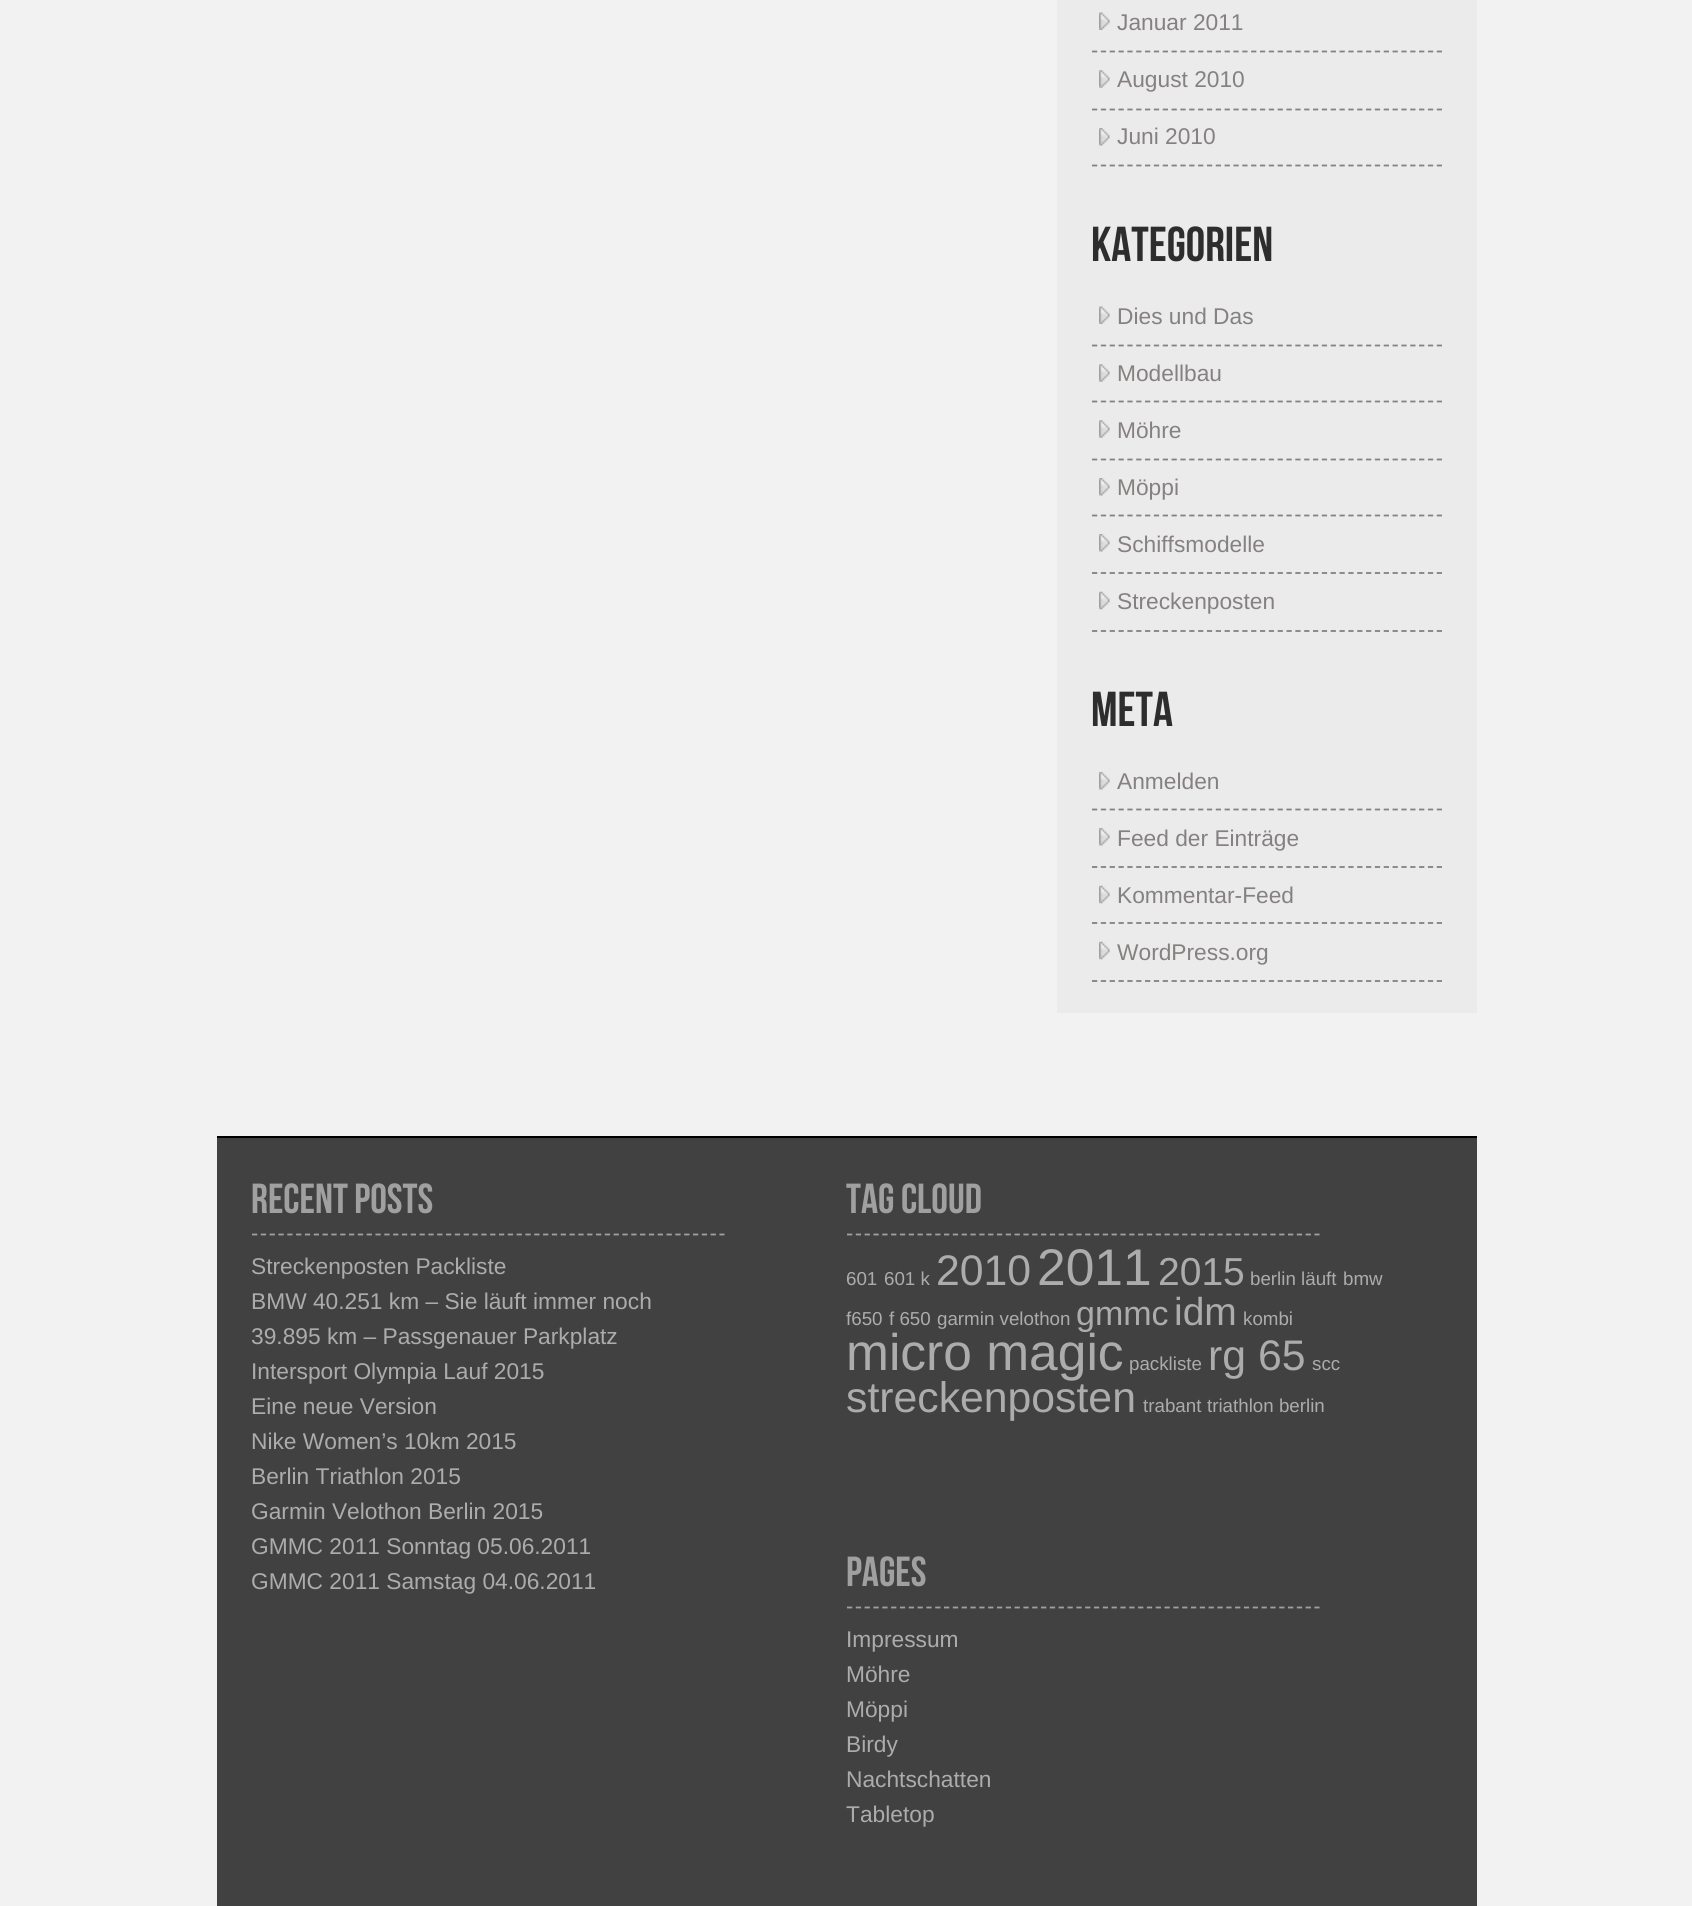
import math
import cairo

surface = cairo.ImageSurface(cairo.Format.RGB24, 1692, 1906)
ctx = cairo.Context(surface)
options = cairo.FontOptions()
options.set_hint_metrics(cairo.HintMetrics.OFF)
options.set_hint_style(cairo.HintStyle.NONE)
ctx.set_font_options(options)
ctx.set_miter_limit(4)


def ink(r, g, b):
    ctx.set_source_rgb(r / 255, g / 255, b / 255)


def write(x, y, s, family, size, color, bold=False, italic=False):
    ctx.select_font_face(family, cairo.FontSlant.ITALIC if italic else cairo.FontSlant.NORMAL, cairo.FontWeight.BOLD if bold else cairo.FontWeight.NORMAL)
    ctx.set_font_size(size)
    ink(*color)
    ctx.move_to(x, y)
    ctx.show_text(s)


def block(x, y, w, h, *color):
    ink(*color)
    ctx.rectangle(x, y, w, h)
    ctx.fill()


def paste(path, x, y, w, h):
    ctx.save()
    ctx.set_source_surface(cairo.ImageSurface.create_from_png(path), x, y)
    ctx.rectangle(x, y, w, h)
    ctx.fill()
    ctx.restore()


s1 = dict(family="Liberation Sans", size=22.75, color=(134, 129, 129))
s2 = dict(family="Bebas Neue", size=49, color=(45, 45, 45))
s3 = dict(family="Bebas Neue", size=42, color=(160, 160, 160))
s4 = dict(family="Liberation Sans", size=22.75, color=(172, 172, 172))
s5 = dict(family="Liberation Sans", size=18.75, color=(172, 172, 172))
s6 = dict(family="Liberation Sans", size=42.75, color=(172, 172, 172))
s7 = dict(family="Liberation Sans", size=51.5, color=(172, 172, 172))
s8 = dict(family="Liberation Sans", size=39, color=(172, 172, 172))
s9 = dict(family="Liberation Sans", size=34, color=(172, 172, 172))

ink(242, 242, 242)
ctx.paint()
block(1057, 0, 420, 1013, 235, 235, 235)
paste("pic1.png", 1099, 12, 11, 18)
ctx.new_path()
ctx.move_to(1092, 51.5)
ctx.line_to(1442, 51.5)
ink(134, 129, 129)
ctx.set_line_width(1.8)
ctx.set_dash([5.25, 3.59])
ctx.stroke()
write(1117, 30, "Januar 2011", **s1)
paste("pic2.png", 1099, 70, 11, 18)
ctx.new_path()
ctx.move_to(1092, 109.5)
ctx.line_to(1442, 109.5)
ctx.stroke()
write(1117, 87, "August 2010", **s1)
paste("pic3.png", 1099, 128, 11, 18)
ctx.new_path()
ctx.move_to(1092, 165.5)
ctx.line_to(1442, 165.5)
ctx.stroke()
write(1117, 144, "Juni 2010", **s1)
write(1091, 261, "KATEGORIEN", **s2)
paste("pic1.png", 1099, 306, 11, 18)
ctx.new_path()
ctx.move_to(1092, 345.5)
ctx.line_to(1442, 345.5)
ink(134, 129, 129)
ctx.stroke()
write(1117, 324, "Dies und Das", **s1)
paste("pic2.png", 1099, 364, 11, 18)
ctx.new_path()
ctx.move_to(1092, 401.5)
ctx.line_to(1442, 401.5)
ctx.stroke()
write(1117, 381, "Modellbau", **s1)
paste("pic2.png", 1099, 420, 11, 18)
ctx.new_path()
ctx.move_to(1092, 459.5)
ctx.line_to(1442, 459.5)
ctx.stroke()
write(1117, 438, "Möhre", **s1)
paste("pic3.png", 1099, 478, 11, 18)
ctx.new_path()
ctx.move_to(1092, 515.5)
ctx.line_to(1442, 515.5)
ctx.stroke()
write(1117, 495, "Möppi", **s1)
paste("pic3.png", 1099, 534, 11, 18)
ctx.new_path()
ctx.move_to(1092, 573)
ctx.line_to(1442, 573)
ctx.stroke()
write(1117, 552, "Schiffsmodelle", **s1)
paste("pic4.png", 1099, 591, 11, 19)
ctx.new_path()
ctx.move_to(1092, 631)
ctx.line_to(1442, 631)
ctx.stroke()
write(1117, 609, "Streckenposten", **s1)
write(1091, 726, "META", **s2)
paste("pic3.png", 1099, 772, 11, 18)
ctx.new_path()
ctx.move_to(1092, 809.5)
ctx.line_to(1442, 809.5)
ink(134, 129, 129)
ctx.stroke()
write(1117, 789, "Anmelden", **s1)
paste("pic3.png", 1099, 828, 11, 18)
ctx.new_path()
ctx.move_to(1092, 867)
ctx.line_to(1442, 867)
ctx.stroke()
write(1117, 846, "Feed der Einträge", **s1)
paste("pic4.png", 1099, 885, 11, 19)
ctx.new_path()
ctx.move_to(1092, 923)
ctx.line_to(1442, 923)
ctx.stroke()
write(1117, 903, "Kommentar-Feed", **s1)
paste("pic4.png", 1099, 941, 11, 19)
ctx.new_path()
ctx.move_to(1092, 981)
ctx.line_to(1442, 981)
ctx.stroke()
write(1117, 960, "WordPress.org", **s1)
block(217, 1138, 1260, 768, 65, 65, 65)
block(217, 1136, 1260, 2, 0, 0, 0)
ctx.new_path()
ctx.move_to(252, 1234.5)
ctx.line_to(724.5, 1234.5)
ink(160, 160, 160)
ctx.set_dash([5.25, 3.57])
ctx.stroke()
write(251, 1213, "RECENT POSTS", **s3)
write(251, 1274, "Streckenposten Packliste", **s4)
write(251, 1309, "BMW 40.251 km – Sie läuft immer noch", **s4)
write(251, 1344, "39.895 km – Passgenauer Parkplatz", **s4)
write(251, 1379, "Intersport Olympia Lauf 2015", **s4)
write(251, 1414, "Eine neue Version", **s4)
write(251, 1449, "Nike Women’s 10km 2015", **s4)
write(251, 1484, "Berlin Triathlon 2015", **s4)
write(251, 1519, "Garmin Velothon Berlin 2015", **s4)
write(251, 1554, "GMMC 2011 Sonntag 05.06.2011", **s4)
write(251, 1589, "GMMC 2011 Samstag 04.06.2011", **s4)
ctx.new_path()
ctx.move_to(847, 1234.5)
ctx.line_to(1319.5, 1234.5)
ink(160, 160, 160)
ctx.stroke()
write(846, 1213, "TAG CLOUD", **s3)
write(846, 1285, "601", **s5)
write(884, 1285, "601 k", **s5)
write(936, 1285, "2010", **s6)
write(1037, 1285, "2011", **s7)
write(1158, 1285, "2015", **s8)
write(1250, 1285, "berlin läuft", **s5)
write(1343, 1285, "bmw", **s5)
write(846, 1325, "f650", **s5)
write(889, 1325, "f 650", **s5)
write(937, 1325, "garmin velothon", **s5)
write(1076, 1325, "gmmc", **s9)
write(1174, 1325, "idm", **s8)
write(1243, 1325, "kombi", **s5)
write(846, 1370, "micro magic", **s7)
write(1129, 1370, "packliste", **s5)
write(1208, 1370, "rg 65", **s6)
write(1312, 1370, "scc", **s5)
write(846, 1412, "streckenposten", **s6)
write(1143, 1412, "trabant", **s5)
write(1207, 1412, "triathlon berlin", **s5)
ctx.new_path()
ctx.move_to(847, 1607.5)
ctx.line_to(1319.5, 1607.5)
ink(160, 160, 160)
ctx.stroke()
write(846, 1586, "PAGES", **s3)
write(846, 1647, "Impressum", **s4)
write(846, 1682, "Möhre", **s4)
write(846, 1717, "Möppi", **s4)
write(846, 1752, "Birdy", **s4)
write(846, 1787, "Nachtschatten", **s4)
write(846, 1822, "Tabletop", **s4)
surface.write_to_png("screenshot.png")
